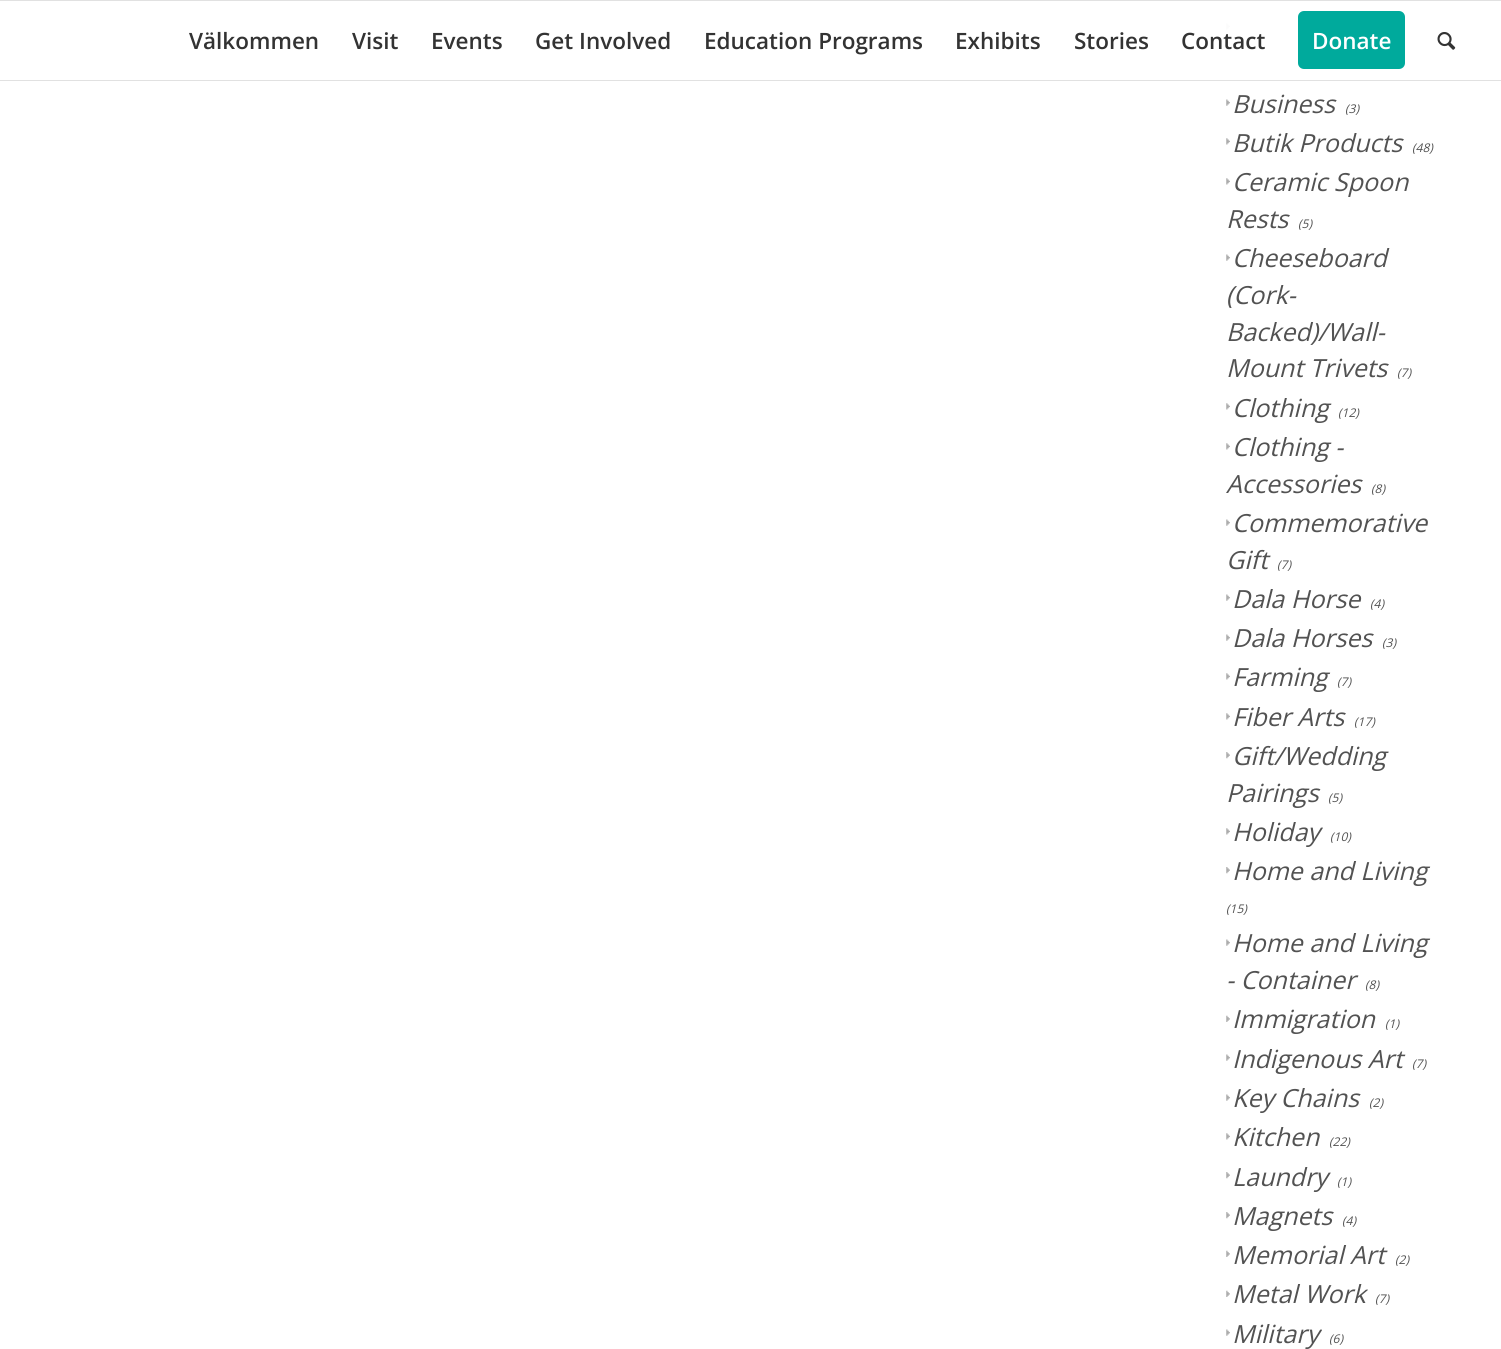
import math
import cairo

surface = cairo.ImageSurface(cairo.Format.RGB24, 1501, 1349)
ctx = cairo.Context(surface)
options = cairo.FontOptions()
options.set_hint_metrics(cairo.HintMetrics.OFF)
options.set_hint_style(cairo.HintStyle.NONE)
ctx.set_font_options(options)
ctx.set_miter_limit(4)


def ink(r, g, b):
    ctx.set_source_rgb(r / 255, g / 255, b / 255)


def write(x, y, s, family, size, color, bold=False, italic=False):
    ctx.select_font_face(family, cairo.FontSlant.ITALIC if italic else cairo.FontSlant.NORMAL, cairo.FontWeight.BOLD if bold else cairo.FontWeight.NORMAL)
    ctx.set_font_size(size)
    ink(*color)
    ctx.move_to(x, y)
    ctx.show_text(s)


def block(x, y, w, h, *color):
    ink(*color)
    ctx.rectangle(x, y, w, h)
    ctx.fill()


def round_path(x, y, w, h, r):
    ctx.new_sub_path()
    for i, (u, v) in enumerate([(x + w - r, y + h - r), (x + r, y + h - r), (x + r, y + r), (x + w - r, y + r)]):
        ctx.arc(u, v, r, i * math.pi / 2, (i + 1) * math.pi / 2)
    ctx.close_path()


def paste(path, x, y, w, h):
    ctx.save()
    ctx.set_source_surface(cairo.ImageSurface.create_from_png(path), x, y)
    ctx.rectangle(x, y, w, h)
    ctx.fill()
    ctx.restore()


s1 = dict(family="Open Sans SemiBold", size=22.5, color=(51, 51, 51))
s2 = dict(family="Open Sans SemiBold", size=22.5, color=(255, 255, 255))
s3 = dict(family="Open Sans", size=25, color=(82, 82, 82), italic=True)
s4 = dict(family="Open Sans", size=12, color=(82, 82, 82), italic=True)

ink(255, 255, 255)
ctx.paint()
block(0, 0, 1501, 1, 225, 225, 225)
block(0, 80, 1501, 1, 225, 225, 225)
write(189, 49, "Välkommen", **s1)
write(352, 49, "Visit", **s1)
write(431, 49, "Events", **s1)
write(535, 49, "Get Involved", **s1)
write(704, 49, "Education Programs", **s1)
write(955, 49, "Exhibits", **s1)
write(1074, 49, "Stories", **s1)
write(1181, 49, "Contact", **s1)
ink(0, 170, 156)
round_path(1299.5, 12.5, 104, 55, 4.5)
ctx.fill_preserve()
ctx.set_line_width(3)
ctx.stroke()
write(1312, 49, "Donate", **s2)
paste("pic1.png", 1437, 32, 19, 18)
paste("pic2.png", 1226, 23, 4, 7)
paste("pic3.png", 1226, 99, 4, 7)
write(1232, 113, "Business", **s3)
write(1345, 113, "(3)", **s4)
paste("pic4.png", 1226, 138, 4, 7)
write(1232, 152, "Butik Products", **s3)
write(1412, 152, "(48)", **s4)
paste("pic4.png", 1226, 178, 4, 7)
write(1232, 191, "Ceramic Spoon", **s3)
write(1226, 228, "Rests", **s3)
write(1298, 228, "(5)", **s4)
paste("pic3.png", 1226, 254, 4, 7)
write(1232, 267, "Cheeseboard", **s3)
write(1226, 304, "(Cork-", **s3)
write(1226, 341, "Backed)/Wall-", **s3)
write(1226, 377, "Mount Trivets", **s3)
write(1397, 377, "(7)", **s4)
paste("pic4.png", 1226, 403, 4, 7)
write(1232, 417, "Clothing", **s3)
write(1338, 417, "(12)", **s4)
paste("pic4.png", 1226, 443, 4, 7)
write(1232, 456, "Clothing -", **s3)
write(1226, 493, "Accessories", **s3)
write(1371, 493, "(8)", **s4)
paste("pic3.png", 1226, 519, 4, 7)
write(1232, 532, "Commemorative", **s3)
write(1226, 569, "Gift", **s3)
write(1277, 569, "(7)", **s4)
paste("pic3.png", 1226, 594, 4, 7)
write(1232, 608, "Dala Horse", **s3)
write(1370, 608, "(4)", **s4)
paste("pic3.png", 1226, 634, 4, 7)
write(1232, 647, "Dala Horses", **s3)
write(1382, 647, "(3)", **s4)
paste("pic4.png", 1226, 673, 4, 7)
write(1232, 686, "Farming", **s3)
write(1337, 686, "(7)", **s4)
paste("pic4.png", 1226, 713, 4, 7)
write(1232, 726, "Fiber Arts", **s3)
write(1354, 726, "(17)", **s4)
paste("pic5.png", 1226, 752, 4, 7)
write(1232, 765, "Gift/Wedding", **s3)
write(1226, 802, "Pairings", **s3)
write(1328, 802, "(5)", **s4)
paste("pic4.png", 1226, 828, 4, 7)
write(1232, 841, "Holiday", **s3)
write(1330, 841, "(10)", **s4)
paste("pic5.png", 1226, 867, 4, 7)
write(1232, 880, "Home and Living", **s3)
write(1226, 913, "(15)", **s4)
paste("pic3.png", 1226, 939, 4, 7)
write(1232, 952, "Home and Living", **s3)
write(1226, 989, "- Container", **s3)
write(1365, 989, "(8)", **s4)
paste("pic6.png", 1226, 1015, 4, 7)
write(1232, 1028, "Immigration", **s3)
write(1385, 1028, "(1)", **s4)
paste("pic3.png", 1226, 1054, 4, 7)
write(1232, 1068, "Indigenous Art", **s3)
write(1412, 1068, "(7)", **s4)
paste("pic3.png", 1226, 1094, 4, 7)
write(1232, 1107, "Key Chains", **s3)
write(1369, 1107, "(2)", **s4)
paste("pic4.png", 1226, 1133, 4, 7)
write(1232, 1146, "Kitchen", **s3)
write(1329, 1146, "(22)", **s4)
paste("pic5.png", 1226, 1172, 4, 7)
write(1232, 1186, "Laundry", **s3)
write(1337, 1186, "(1)", **s4)
paste("pic5.png", 1226, 1212, 4, 7)
write(1232, 1225, "Magnets", **s3)
write(1342, 1225, "(4)", **s4)
paste("pic7.png", 1226, 1250, 4, 7)
write(1232, 1264, "Memorial Art", **s3)
write(1395, 1264, "(2)", **s4)
paste("pic7.png", 1226, 1290, 4, 7)
write(1232, 1303, "Metal Work", **s3)
write(1375, 1303, "(7)", **s4)
paste("pic3.png", 1226, 1329, 4, 7)
write(1232, 1343, "Military", **s3)
write(1329, 1343, "(6)", **s4)
surface.write_to_png("screenshot.png")
